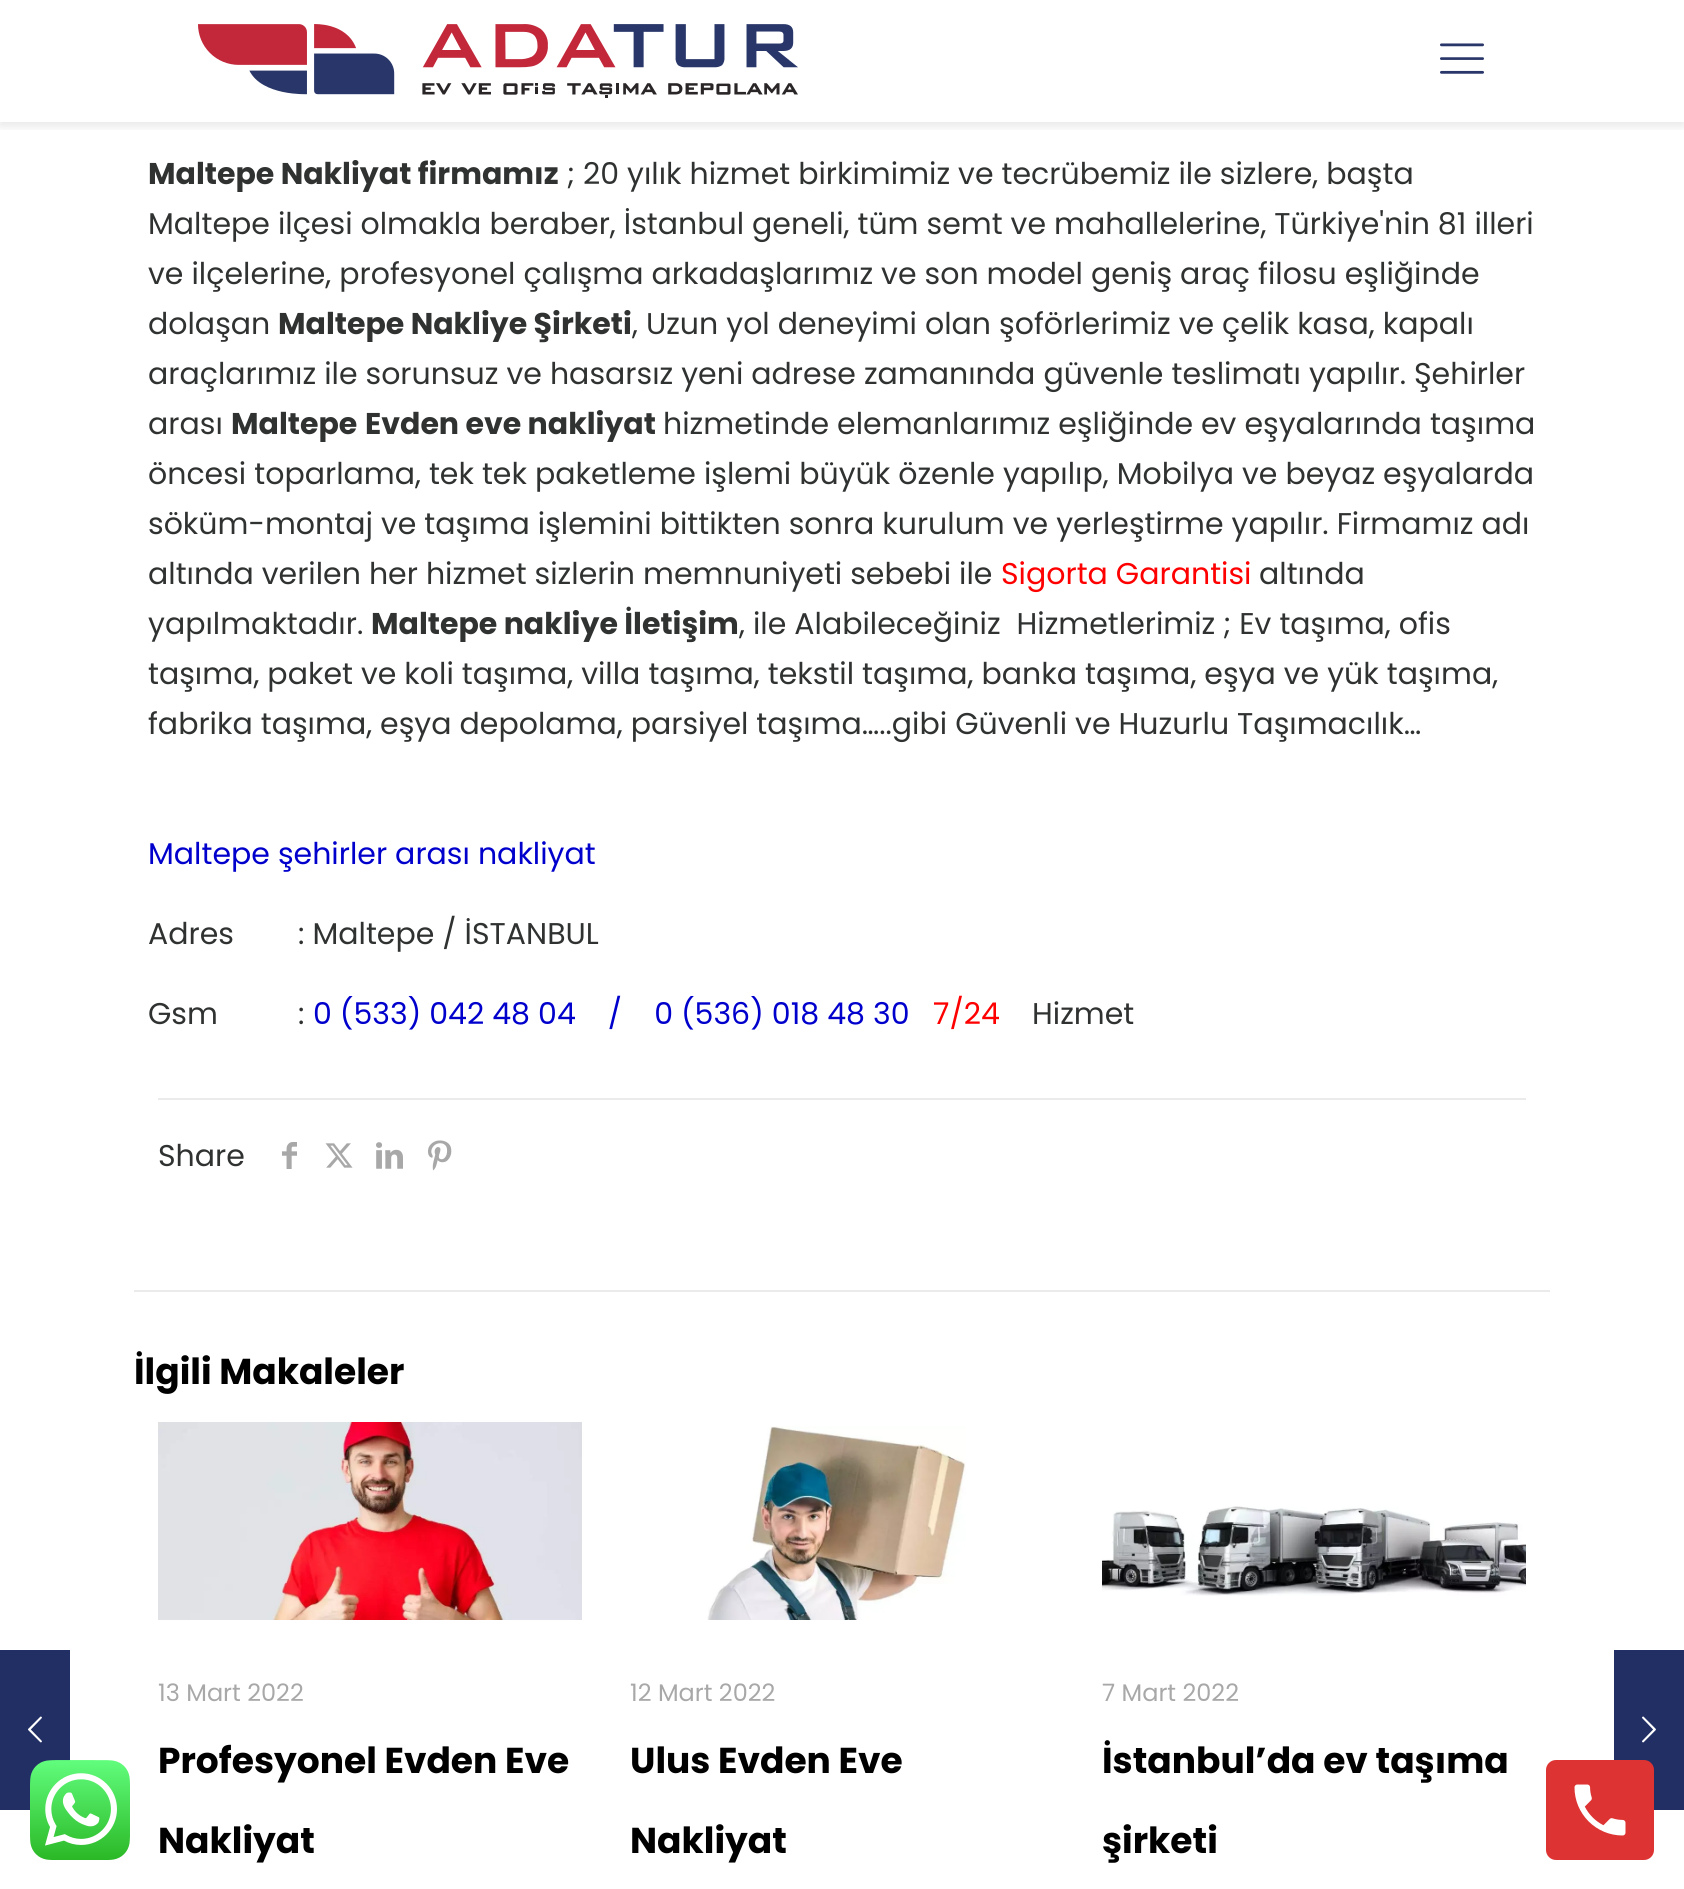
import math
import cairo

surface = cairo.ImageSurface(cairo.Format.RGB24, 1684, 1889)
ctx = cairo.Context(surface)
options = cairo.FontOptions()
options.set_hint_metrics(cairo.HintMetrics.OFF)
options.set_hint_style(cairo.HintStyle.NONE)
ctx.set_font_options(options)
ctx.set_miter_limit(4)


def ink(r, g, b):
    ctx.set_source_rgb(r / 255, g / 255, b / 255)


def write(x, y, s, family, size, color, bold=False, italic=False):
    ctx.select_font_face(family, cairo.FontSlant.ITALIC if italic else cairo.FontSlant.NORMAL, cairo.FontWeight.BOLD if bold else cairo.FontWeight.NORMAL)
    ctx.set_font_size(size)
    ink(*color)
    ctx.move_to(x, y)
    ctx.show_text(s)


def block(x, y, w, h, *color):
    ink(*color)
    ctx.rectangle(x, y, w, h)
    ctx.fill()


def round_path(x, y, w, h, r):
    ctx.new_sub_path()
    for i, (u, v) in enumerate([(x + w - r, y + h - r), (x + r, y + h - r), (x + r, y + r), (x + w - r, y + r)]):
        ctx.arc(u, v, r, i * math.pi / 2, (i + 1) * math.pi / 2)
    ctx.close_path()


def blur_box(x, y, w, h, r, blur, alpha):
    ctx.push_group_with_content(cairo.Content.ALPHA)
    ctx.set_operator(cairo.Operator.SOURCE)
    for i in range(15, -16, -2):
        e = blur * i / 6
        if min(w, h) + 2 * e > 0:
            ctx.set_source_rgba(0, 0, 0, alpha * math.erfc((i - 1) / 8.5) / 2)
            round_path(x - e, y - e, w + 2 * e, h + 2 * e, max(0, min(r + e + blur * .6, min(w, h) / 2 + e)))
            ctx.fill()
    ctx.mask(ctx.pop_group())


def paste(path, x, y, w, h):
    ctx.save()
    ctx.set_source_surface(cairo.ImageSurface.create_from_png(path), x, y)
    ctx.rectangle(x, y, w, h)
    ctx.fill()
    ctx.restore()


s1 = dict(family="Poppins", size=30, color=(47, 50, 49), bold=True)
s2 = dict(family="Poppins", size=30, color=(47, 50, 49))
s3 = dict(family="Poppins", size=30, color=(255, 0, 0))
s4 = dict(family="Poppins", size=30, color=(0, 0, 205))
s5 = dict(family="Poppins", size=36, color=(0, 0, 0), bold=True)
s6 = dict(family="Poppins", size=24, color=(168, 168, 168))

ink(255, 255, 255)
ctx.paint()
block(0, 1650, 70, 160, 33, 47, 100)
paste("pic1.png", 28, 1716, 14, 27)
ctx.save()
ctx.rectangle(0, 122, 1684, 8)
ctx.clip()
ink(8, 8, 8)
blur_box(0, 4, 1684, 122, 0, 5, 0.1)
ctx.restore()
paste("pic2.png", 198, 24, 600, 74)
paste("pic3.png", 1440, 43, 44, 31)
write(148, 184, "Maltepe Nakliyat firmamız", **s1)
write(567, 184, "; 20 yılık hizmet birkimimiz ve tecrübemiz ile sizlere, başta", **s2)
write(148, 234, "Maltepe ilçesi olmakla beraber, İstanbul geneli, tüm semt ve mahallelerine, Türkiye'nin 81 illeri", **s2)
write(148, 284, "ve ilçelerine, profesyonel çalışma arkadaşlarımız ve son model geniş araç filosu eşliğinde", **s2)
write(148, 334, "dolaşan", **s2)
write(278, 334, "Maltepe Nakliye Şirketi", **s1)
write(632, 334, ", Uzun yol deneyimi olan şoförlerimiz ve çelik kasa, kapalı", **s2)
write(148, 384, "araçlarımız ile sorunsuz ve hasarsız yeni adrese zamanında güvenle teslimatı yapılır. Şehirler", **s2)
write(148, 434, "arası", **s2)
write(231, 434, "Maltepe", **s1)
write(365, 434, "Evden eve nakliyat", **s1)
write(663, 434, "hizmetinde elemanlarımız eşliğinde ev eşyalarında taşıma", **s2)
write(148, 484, "öncesi toparlama, tek tek paketleme işlemi büyük özenle yapılıp, Mobilya ve beyaz eşyalarda", **s2)
write(148, 534, "söküm-montaj ve taşıma işlemini bittikten sonra kurulum ve yerleştirme yapılır. Firmamız adı", **s2)
write(148, 584, "altında verilen her hizmet sizlerin memnuniyeti sebebi ile", **s2)
write(1001, 584, "Sigorta Garantisi", **s3)
write(1259, 584, "altında", **s2)
write(148, 634, "yapılmaktadır.", **s2)
write(371, 634, "Maltepe nakliye İletişim", **s1)
write(739, 634, ", ile Alabileceğiniz  Hizmetlerimiz ; Ev taşıma, ofis", **s2)
write(148, 684, "taşıma, paket ve koli taşıma, villa taşıma, tekstil taşıma, banka taşıma, eşya ve yük taşıma,", **s2)
write(148, 734, "fabrika taşıma, eşya depolama, parsiyel taşıma…..gibi Güvenli ve Huzurlu Taşımacılık…", **s2)
write(148, 864, "Maltepe şehirler arası nakliyat", **s4)
write(148, 944, "Adres        : Maltepe / İSTANBUL", **s2)
write(148, 1024, "Gsm          :", **s2)
write(313, 1024, "0 (533) 042 48 04    /    0 (536) 018 48 30", **s4)
write(933, 1024, "7/24", **s3)
write(1032, 1024, "Hizmet", **s2)
block(158, 1098, 1368, 2, 235, 235, 235)
write(158, 1166, "Share", **s2)
paste("pic4.png", 282, 1142, 15, 27)
paste("pic5.png", 325, 1143, 28, 25)
paste("pic6.png", 376, 1142, 27, 27)
paste("pic7.png", 428, 1140, 24, 31)
block(134, 1290, 1416, 2, 235, 235, 235)
write(134, 1384, "İlgili Makaleler", **s5)
paste("pic8.png", 158, 1422, 424, 198)
write(158, 1701, "13 Mart 2022", **s6)
write(158, 1773, "Profesyonel Evden Eve", **s5)
write(158, 1853, "Nakliyat", **s5)
paste("pic9.png", 707, 1426, 259, 194)
write(630, 1701, "12 Mart 2022", **s6)
write(630, 1773, "Ulus Evden Eve", **s5)
write(630, 1853, "Nakliyat", **s5)
paste("pic10.png", 1102, 1506, 424, 90)
write(1102, 1701, "7 Mart 2022", **s6)
write(1102, 1773, "İstanbul’da ev taşıma", **s5)
write(1102, 1853, "şirketi", **s5)
block(1614, 1650, 70, 160, 33, 47, 100)
paste("pic11.png", 1642, 1716, 14, 27)
paste("pic12.png", 30, 1760, 100, 100)
ink(221, 51, 51)
round_path(1546, 1760, 108, 100, 10)
ctx.fill()
paste("pic13.png", 1574, 1784, 52, 52)
surface.write_to_png("screenshot.png")
